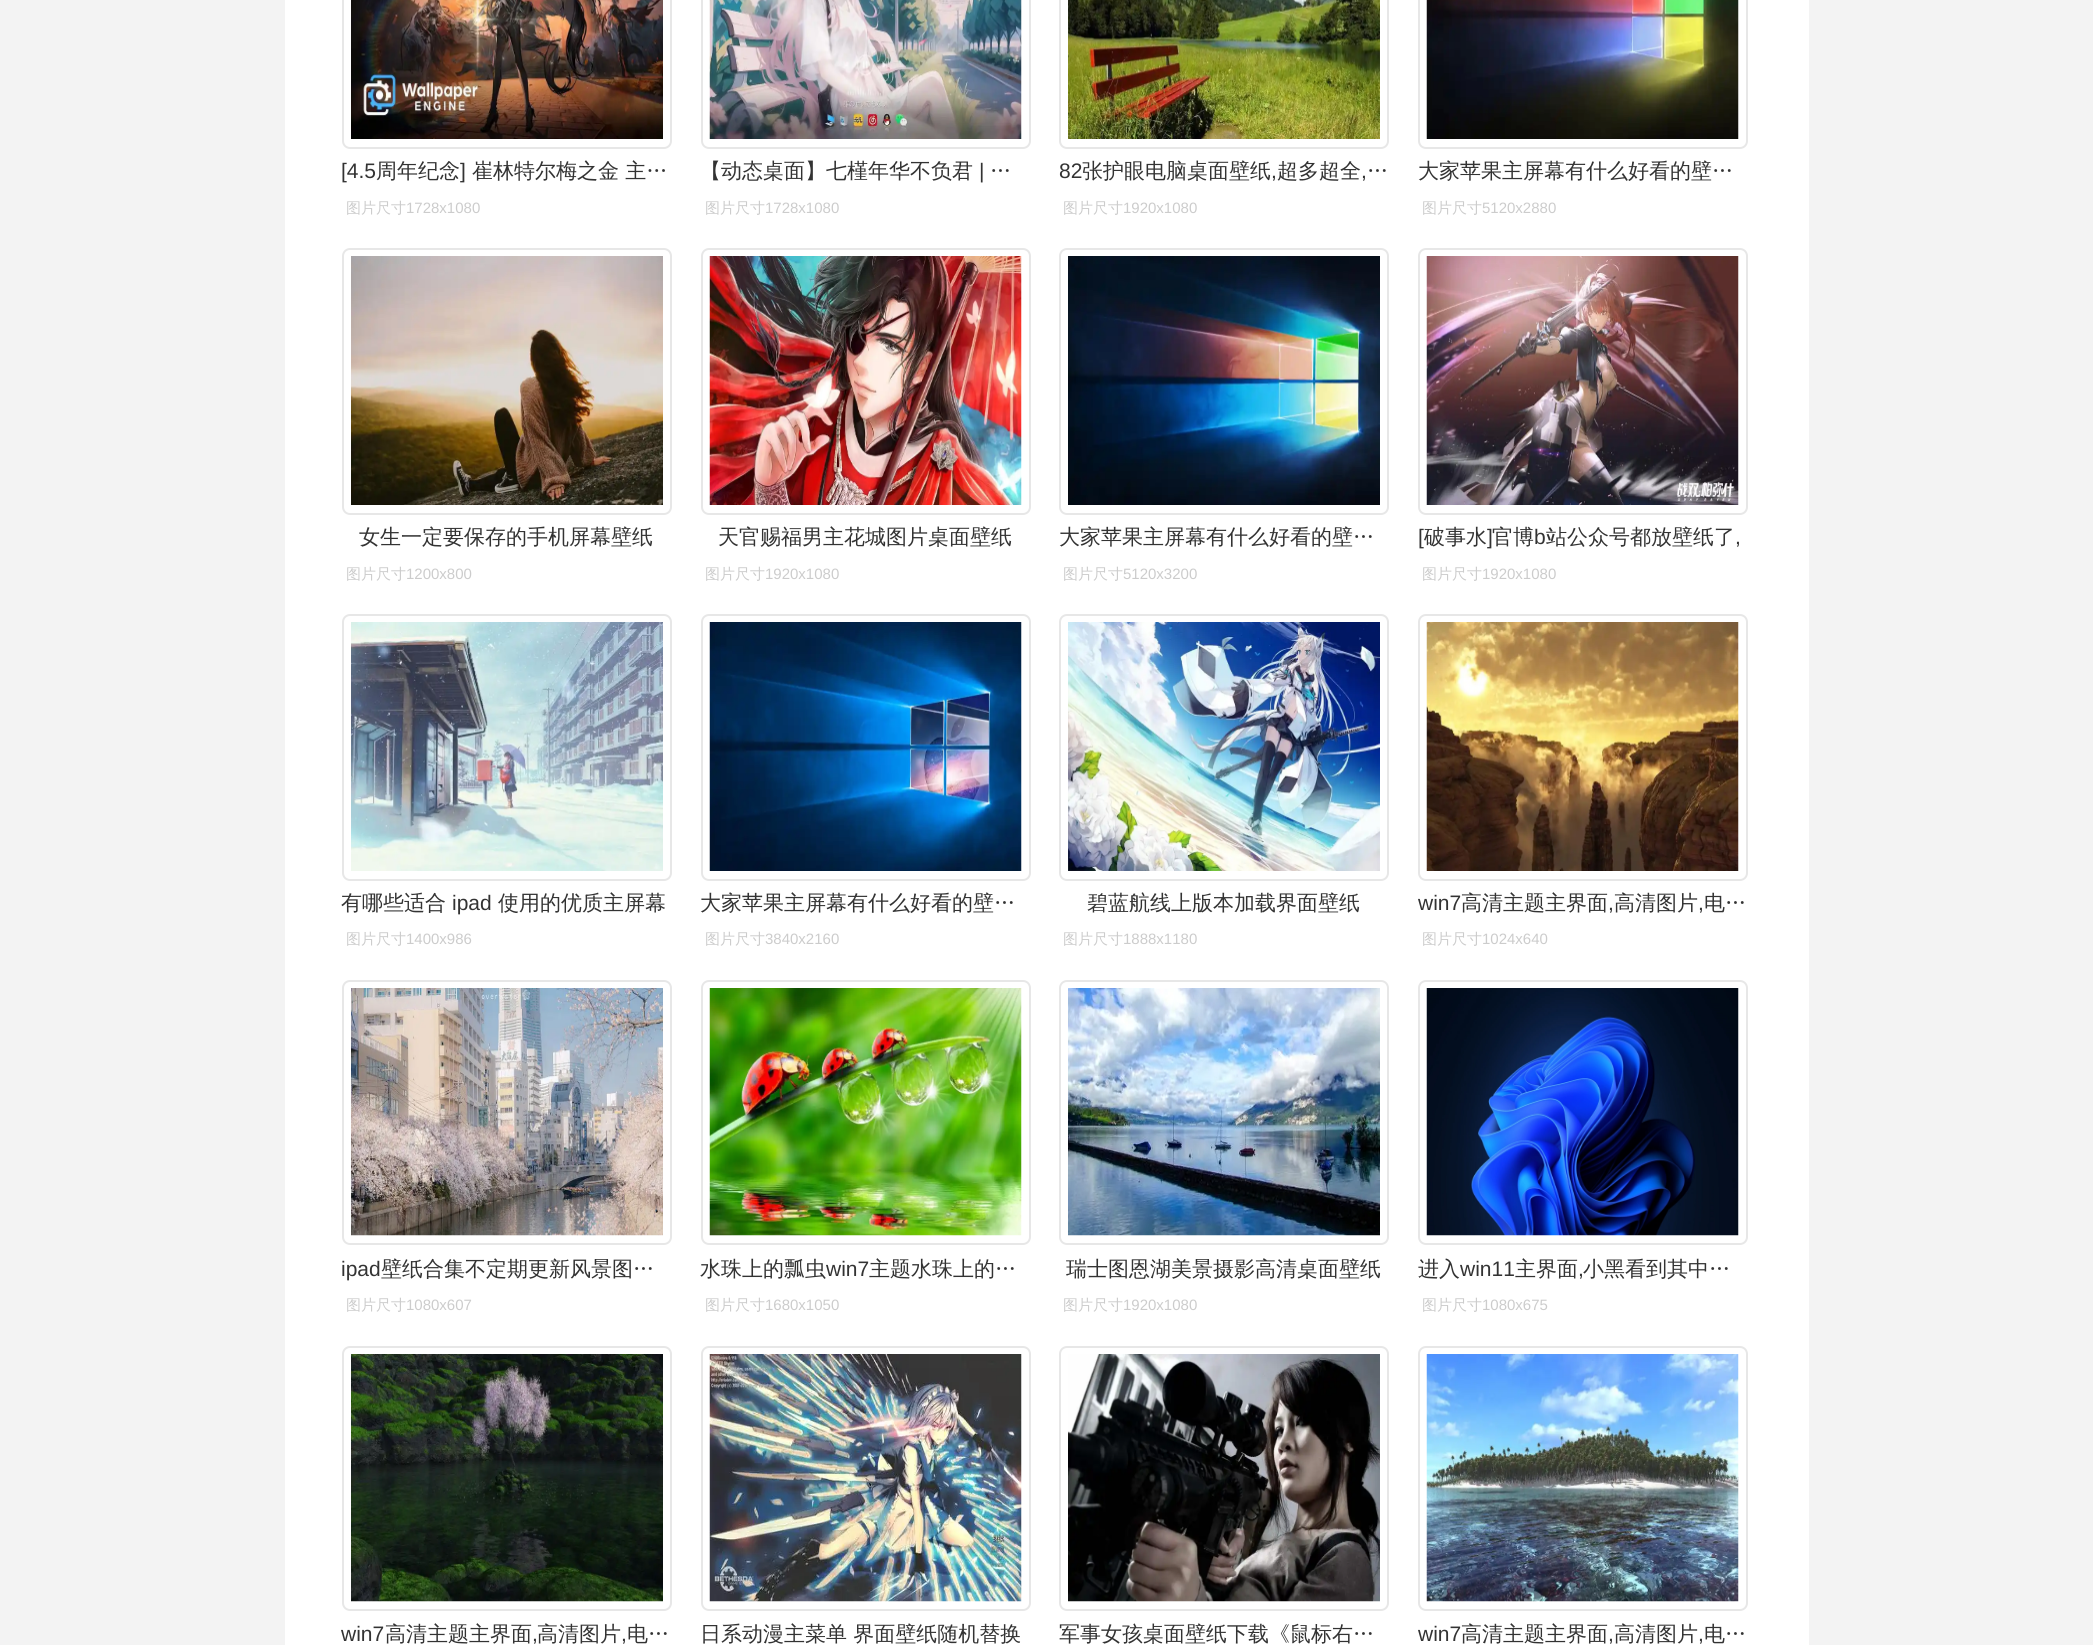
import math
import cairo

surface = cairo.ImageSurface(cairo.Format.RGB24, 2093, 1645)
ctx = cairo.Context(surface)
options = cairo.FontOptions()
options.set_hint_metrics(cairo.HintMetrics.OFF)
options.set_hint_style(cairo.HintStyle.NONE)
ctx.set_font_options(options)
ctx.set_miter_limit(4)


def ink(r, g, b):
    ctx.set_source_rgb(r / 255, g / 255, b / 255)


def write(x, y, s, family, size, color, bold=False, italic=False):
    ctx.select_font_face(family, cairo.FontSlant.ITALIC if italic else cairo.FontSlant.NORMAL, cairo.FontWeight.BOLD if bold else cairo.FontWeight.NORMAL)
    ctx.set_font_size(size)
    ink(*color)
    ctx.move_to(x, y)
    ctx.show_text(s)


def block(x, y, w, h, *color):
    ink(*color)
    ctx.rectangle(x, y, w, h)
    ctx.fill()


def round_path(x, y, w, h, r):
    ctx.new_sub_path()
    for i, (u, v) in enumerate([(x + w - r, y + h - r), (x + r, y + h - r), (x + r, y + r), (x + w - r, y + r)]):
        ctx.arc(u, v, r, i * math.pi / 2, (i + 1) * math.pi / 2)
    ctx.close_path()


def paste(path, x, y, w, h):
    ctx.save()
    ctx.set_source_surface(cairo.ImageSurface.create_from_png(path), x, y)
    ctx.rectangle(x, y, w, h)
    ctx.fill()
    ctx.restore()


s1 = dict(family="Liberation Sans", size=21, color=(51, 51, 51))
s2 = dict(family="WenQuanYi Zen Hei Medium", size=21, color=(51, 51, 51))
s3 = dict(family="WenQuanYi Zen Hei Medium", size=15, color=(204, 204, 204))
s4 = dict(family="Liberation Sans", size=15, color=(204, 204, 204))

ink(243, 243, 243)
ctx.paint()
block(285, 0, 1524, 1645, 255, 255, 255)
round_path(343, -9, 328, 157, 7)
ink(231, 231, 231)
ctx.stroke()
paste("pic1.png", 351, 0, 312, 139)
write(341, 178, "[4.5", **s1)
write(376, 178, "周年纪念", **s2)
write(460, 178, "]", **s1)
write(472, 178, "崔林特尔梅之金 主…", **s2)
write(346, 213, "图片尺寸", **s3)
write(406, 213, "1728x1080", **s4)
round_path(702, -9, 328, 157, 7)
ink(231, 231, 231)
ctx.stroke()
paste("pic2.png", 709, 0, 313, 139)
write(700, 178, "【动态桌面】七槿年华不负君", **s2)
write(979, 178, "|", **s1)
write(990, 178, "…", **s2)
write(705, 213, "图片尺寸", **s3)
write(765, 213, "1728x1080", **s4)
round_path(1060, -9, 328, 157, 7)
ink(231, 231, 231)
ctx.stroke()
paste("pic3.png", 1068, 0, 312, 139)
write(1059, 178, "82", **s1)
write(1082, 178, "张护眼电脑桌面壁纸", **s2)
write(1277, 178, "超多超全", **s2)
write(1367, 178, "…", **s2)
write(1271, 178, ",", **s1)
write(1361, 178, ",", **s1)
write(1063, 213, "图片尺寸", **s3)
write(1123, 213, "1920x1080", **s4)
round_path(1419, -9, 328, 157, 7)
ink(231, 231, 231)
ctx.stroke()
paste("pic4.png", 1426, 0, 313, 139)
write(1418, 178, "大家苹果主屏幕有什么好看的壁…", **s2)
write(1422, 213, "图片尺寸", **s3)
write(1482, 213, "5120x2880", **s4)
round_path(343, 249, 328, 265, 7)
ink(231, 231, 231)
ctx.stroke()
paste("pic5.png", 351, 256, 312, 249)
write(359, 544, "女生一定要保存的手机屏幕壁纸", **s2)
write(346, 579, "图片尺寸", **s3)
write(406, 579, "1200x800", **s4)
round_path(702, 249, 328, 265, 7)
ink(231, 231, 231)
ctx.stroke()
paste("pic6.png", 709, 256, 313, 249)
write(718, 544, "天官赐福男主花城图片桌面壁纸", **s2)
write(705, 579, "图片尺寸", **s3)
write(765, 579, "1920x1080", **s4)
round_path(1060, 249, 328, 265, 7)
ink(231, 231, 231)
ctx.stroke()
paste("pic7.png", 1068, 256, 312, 249)
write(1059, 544, "大家苹果主屏幕有什么好看的壁…", **s2)
write(1063, 579, "图片尺寸", **s3)
write(1123, 579, "5120x3200", **s4)
round_path(1419, 249, 328, 265, 7)
ink(231, 231, 231)
ctx.stroke()
paste("pic8.png", 1426, 256, 313, 249)
write(1418, 544, "[", **s1)
write(1424, 544, "破事水", **s2)
write(1487, 544, "]", **s1)
write(1492, 544, "官博", **s2)
write(1534, 544, "b", **s1)
write(1546, 544, "站公众号都放壁纸了", **s2)
write(1735, 544, ",", **s1)
write(1422, 579, "图片尺寸", **s3)
write(1482, 579, "1920x1080", **s4)
round_path(343, 615, 328, 265, 7)
ink(231, 231, 231)
ctx.stroke()
paste("pic9.png", 351, 622, 312, 249)
write(341, 910, "有哪些适合", **s2)
write(452, 910, "ipad", **s1)
write(498, 910, "使用的优质主屏幕", **s2)
write(346, 944, "图片尺寸", **s3)
write(406, 944, "1400x986", **s4)
round_path(702, 615, 328, 265, 7)
ink(231, 231, 231)
ctx.stroke()
paste("pic10.png", 709, 622, 313, 249)
write(700, 910, "大家苹果主屏幕有什么好看的壁…", **s2)
write(705, 944, "图片尺寸", **s3)
write(765, 944, "3840x2160", **s4)
round_path(1060, 615, 328, 265, 7)
ink(231, 231, 231)
ctx.stroke()
paste("pic11.png", 1068, 622, 312, 249)
write(1087, 910, "碧蓝航线上版本加载界面壁纸", **s2)
write(1063, 944, "图片尺寸", **s3)
write(1123, 944, "1888x1180", **s4)
round_path(1419, 615, 328, 265, 7)
ink(231, 231, 231)
ctx.stroke()
paste("pic12.png", 1426, 622, 313, 249)
write(1418, 910, "win7", **s1)
write(1461, 910, "高清主题主界面", **s2)
write(1608, 910, ",", **s1)
write(1614, 910, "高清图片", **s2)
write(1698, 910, ",", **s1)
write(1704, 910, "电…", **s2)
write(1422, 944, "图片尺寸", **s3)
write(1482, 944, "1024x640", **s4)
round_path(343, 981, 328, 263, 7)
ink(231, 231, 231)
ctx.stroke()
paste("pic13.png", 351, 988, 312, 248)
write(341, 1276, "ipad", **s1)
write(381, 1276, "壁纸合集不定期更新风景图…", **s2)
write(346, 1310, "图片尺寸", **s3)
write(406, 1310, "1080x607", **s4)
round_path(702, 981, 328, 263, 7)
ink(231, 231, 231)
ctx.stroke()
paste("pic14.png", 709, 988, 313, 248)
write(700, 1276, "水珠上的瓢虫", **s2)
write(826, 1276, "win7", **s1)
write(869, 1276, "主题水珠上的…", **s2)
write(705, 1310, "图片尺寸", **s3)
write(765, 1310, "1680x1050", **s4)
round_path(1060, 981, 328, 263, 7)
ink(231, 231, 231)
ctx.stroke()
paste("pic15.png", 1068, 988, 312, 248)
write(1066, 1276, "瑞士图恩湖美景摄影高清桌面壁纸", **s2)
write(1063, 1310, "图片尺寸", **s3)
write(1123, 1310, "1920x1080", **s4)
round_path(1419, 981, 328, 263, 7)
ink(231, 231, 231)
ctx.stroke()
paste("pic16.png", 1426, 988, 313, 248)
write(1418, 1276, "进入", **s2)
write(1460, 1276, "win11", **s1)
write(1515, 1276, "主界面", **s2)
write(1578, 1276, ",", **s1)
write(1583, 1276, "小黑看到其中…", **s2)
write(1422, 1310, "图片尺寸", **s3)
write(1482, 1310, "1080x675", **s4)
round_path(343, 1347, 328, 263, 7)
ink(231, 231, 231)
ctx.stroke()
paste("pic17.png", 351, 1354, 312, 248)
write(341, 1641, "win7", **s1)
write(385, 1641, "高清主题主界面", **s2)
write(532, 1641, ",", **s1)
write(537, 1641, "高清图片", **s2)
write(621, 1641, ",", **s1)
write(627, 1641, "电…", **s2)
round_path(702, 1347, 328, 263, 7)
ink(231, 231, 231)
ctx.stroke()
paste("pic18.png", 709, 1354, 313, 248)
write(700, 1641, "日系动漫主菜单 界面壁纸随机替换", **s2)
round_path(1060, 1347, 328, 263, 7)
ink(231, 231, 231)
ctx.stroke()
paste("pic19.png", 1068, 1354, 312, 248)
write(1059, 1641, "军事女孩桌面壁纸下载《鼠标右…", **s2)
round_path(1419, 1347, 328, 263, 7)
ink(231, 231, 231)
ctx.stroke()
paste("pic20.png", 1426, 1354, 313, 248)
write(1418, 1641, "win7", **s1)
write(1461, 1641, "高清主题主界面", **s2)
write(1608, 1641, ",", **s1)
write(1614, 1641, "高清图片", **s2)
write(1698, 1641, ",", **s1)
write(1704, 1641, "电…", **s2)
surface.write_to_png("screenshot.png")
